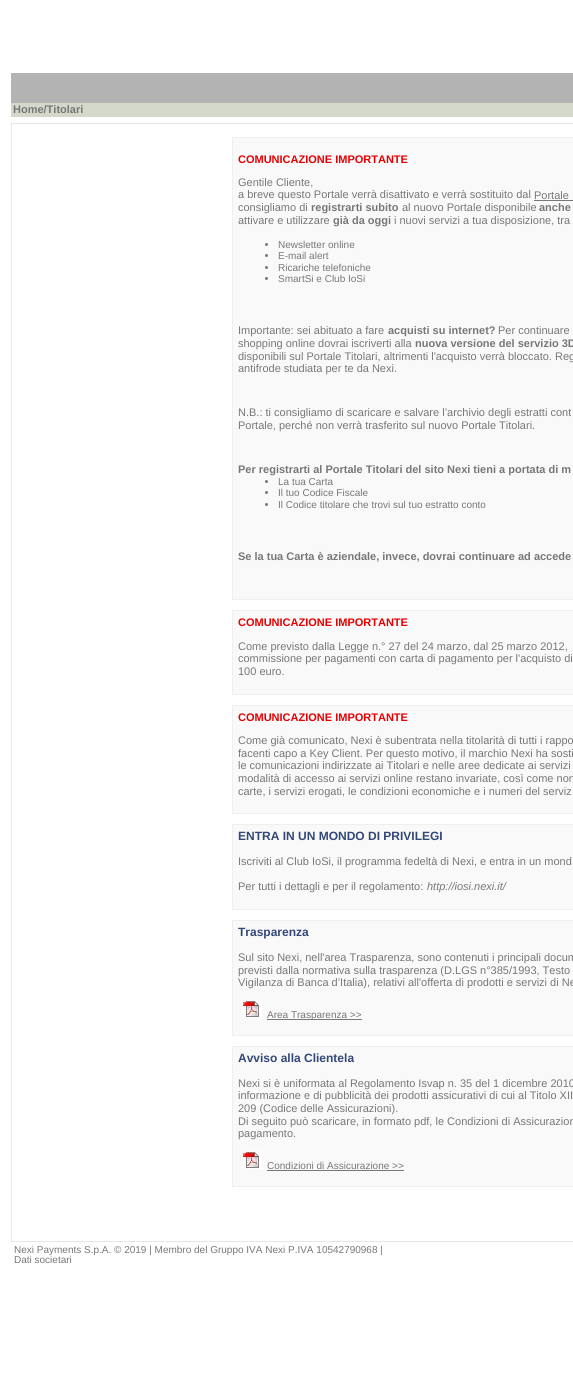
import math
import cairo

surface = cairo.ImageSurface(cairo.Format.RGB24, 573, 1376)
ctx = cairo.Context(surface)
options = cairo.FontOptions()
options.set_hint_metrics(cairo.HintMetrics.OFF)
options.set_hint_style(cairo.HintStyle.NONE)
ctx.set_font_options(options)
ctx.set_miter_limit(4)


def ink(r, g, b):
    ctx.set_source_rgb(r / 255, g / 255, b / 255)


def write(x, y, s, family, size, color, bold=False, italic=False):
    ctx.select_font_face(family, cairo.FontSlant.ITALIC if italic else cairo.FontSlant.NORMAL, cairo.FontWeight.BOLD if bold else cairo.FontWeight.NORMAL)
    ctx.set_font_size(size)
    ink(*color)
    ctx.move_to(x, y)
    ctx.show_text(s)


def block(x, y, w, h, *color):
    ink(*color)
    ctx.rectangle(x, y, w, h)
    ctx.fill()


def paste(path, x, y, w, h):
    ctx.save()
    ctx.set_source_surface(cairo.ImageSurface.create_from_png(path), x, y)
    ctx.rectangle(x, y, w, h)
    ctx.fill()
    ctx.restore()


s1 = dict(family="Liberation Sans", size=11, color=(119, 119, 119), bold=True)
s2 = dict(family="Liberation Sans", size=11, color=(230, 0, 3), bold=True)
s3 = dict(family="Liberation Sans", size=11, color=(119, 119, 119))
s4 = dict(family="Liberation Sans", size=10, color=(119, 119, 119))
s5 = dict(family="Liberation Sans", size=12, color=(51, 72, 120), bold=True)
s6 = dict(family="Liberation Sans", size=11, color=(119, 119, 119), italic=True)

ink(255, 255, 255)
ctx.paint()
block(11, 103, 562, 14, 211, 216, 202)
block(11, 73, 562, 30, 179, 179, 179)
write(13, 113, "Home/Titolari", **s1)
ctx.rectangle(11.5, 123.5, 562, 1118)
ink(230, 230, 230)
ctx.set_line_width(1)
ctx.stroke()
ink(249, 249, 249)
ctx.rectangle(232.5, 137.5, 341, 462)
ctx.fill_preserve()
ink(239, 239, 239)
ctx.stroke()
write(238, 163, "COMUNICAZIONE IMPORTANTE", **s2)
write(238, 186, "Gentile Cliente,", **s3)
write(238, 198, "a breve questo Portale verrà disattivato e verrà sostituito dal", **s3)
write(534, 199, "Portale", **s3)
block(534, 200, 39, 1, 119, 119, 119)
write(238, 211, "consigliamo di", **s3)
write(311, 211, "registrarti subito", **s1)
write(402, 211, "al nuovo Portale disponibile", **s3)
write(539, 211, "anche", **s1)
write(238, 224, "attivare e utilizzare", **s3)
write(333, 224, "già da oggi", **s1)
write(394, 224, "i nuovi servizi a tua disposizione, tra", **s3)
ctx.new_path()
ctx.arc(266.5, 244.5, 1.5, 0, 2 * math.pi)
ctx.fill()
write(278, 248, "Newsletter online", **s4)
ctx.new_path()
ctx.arc(266.5, 255.5, 1.5, 0, 2 * math.pi)
ctx.fill()
write(278, 259, "E-mail alert", **s4)
ctx.new_path()
ctx.arc(266.5, 267.5, 1.5, 0, 2 * math.pi)
ctx.fill()
write(278, 271, "Ricariche telefoniche", **s4)
ctx.new_path()
ctx.arc(266.5, 278.5, 1.5, 0, 2 * math.pi)
ctx.fill()
write(278, 282, "SmartSi e Club IoSi", **s4)
write(238, 334, "Importante: sei abituato a fare", **s3)
write(388, 334, "acquisti su internet?", **s1)
write(498, 334, "Per continuare", **s3)
write(238, 347, "shopping online dovrai iscriverti alla", **s3)
write(415, 347, "nuova versione del servizio 3D", **s1)
write(238, 360, "disponibili sul Portale Titolari, altrimenti l'acquisto verrà bloccato. Reg", **s3)
write(238, 372, "antifrode studiata per te da Nexi.", **s3)
write(238, 416, "N.B.: ti consigliamo di scaricare e salvare l’archivio degli estratti cont", **s3)
write(238, 429, "Portale, perché non verrà trasferito sul nuovo Portale Titolari.", **s3)
write(238, 473, "Per registrarti al Portale Titolari del sito Nexi tieni a portata di m", **s1)
ctx.new_path()
ctx.arc(266.5, 481.5, 1.5, 0, 2 * math.pi)
ctx.fill()
write(278, 485, "La tua Carta", **s4)
ctx.new_path()
ctx.arc(266.5, 492.5, 1.5, 0, 2 * math.pi)
ctx.fill()
write(278, 496, "Il tuo Codice Fiscale", **s4)
ctx.new_path()
ctx.arc(266.5, 504.5, 1.5, 0, 2 * math.pi)
ctx.fill()
write(278, 508, "Il Codice titolare che trovi sul tuo estratto conto", **s4)
write(238, 560, "Se la tua Carta è aziendale, invece, dovrai continuare ad accede", **s1)
ink(249, 249, 249)
ctx.rectangle(232.5, 610.5, 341, 84)
ctx.fill_preserve()
ink(239, 239, 239)
ctx.stroke()
write(238, 626, "COMUNICAZIONE IMPORTANTE", **s2)
write(238, 650, "Come previsto dalla Legge n.° 27 del 24 marzo, dal 25 marzo 2012,", **s3)
write(238, 662, "commissione per pagamenti con carta di pagamento per l'acquisto di", **s3)
write(238, 675, "100 euro.", **s3)
ink(249, 249, 249)
ctx.rectangle(232.5, 705.5, 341, 108)
ctx.fill_preserve()
ink(239, 239, 239)
ctx.stroke()
write(238, 721, "COMUNICAZIONE IMPORTANTE", **s2)
write(238, 744, "Come già comunicato, Nexi è subentrata nella titolarità di tutti i rappo", **s3)
write(238, 757, "facenti capo a Key Client. Per questo motivo, il marchio Nexi ha sosti", **s3)
write(238, 769, "le comunicazioni indirizzate ai Titolari e nelle aree dedicate ai servizi", **s3)
write(238, 782, "modalità di accesso ai servizi online restano invariate, così come non", **s3)
write(238, 795, "carte, i servizi erogati, le condizioni economiche e i numeri del serviz", **s3)
ink(249, 249, 249)
ctx.rectangle(232.5, 824.5, 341, 85)
ctx.fill_preserve()
ink(239, 239, 239)
ctx.stroke()
write(238, 840, "ENTRA IN UN MONDO DI PRIVILEGI", **s5)
write(238, 865, "Iscriviti al Club IoSi, il programma fedeltà di Nexi, e entra in un mond", **s3)
write(238, 890, "Per tutti i dettagli e per il regolamento:", **s3)
write(427, 890, "http://iosi.nexi.it/", **s6)
ink(249, 249, 249)
ctx.rectangle(232.5, 920.5, 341, 115)
ctx.fill_preserve()
ink(239, 239, 239)
ctx.stroke()
write(238, 936, "Trasparenza", **s5)
write(238, 961, "Sul sito Nexi, nell'area Trasparenza, sono contenuti i principali docum", **s3)
write(238, 974, "previsti dalla normativa sulla trasparenza (D.LGS n°385/1993, Testo", **s3)
write(238, 986, "Vigilanza di Banca d’Italia), relativi all'offerta di prodotti e servizi di Ne", **s3)
paste("pic1.png", 243, 1000, 19, 18)
block(267, 1019, 95, 1, 119, 119, 119)
write(267, 1018, "Area Trasparenza >>", **s4)
ink(249, 249, 249)
ctx.rectangle(232.5, 1046.5, 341, 140)
ctx.fill_preserve()
ink(239, 239, 239)
ctx.stroke()
write(238, 1062, "Avviso alla Clientela", **s5)
write(238, 1087, "Nexi si è uniformata al Regolamento Isvap n. 35 del 1 dicembre 2010", **s3)
write(238, 1099, "informazione e di pubblicità dei prodotti assicurativi di cui al Titolo XII", **s3)
write(238, 1112, "209 (Codice delle Assicurazioni).", **s3)
write(238, 1125, "Di seguito può scaricare, in formato pdf, le Condizioni di Assicurazion", **s3)
write(238, 1137, "pagamento.", **s3)
paste("pic1.png", 243, 1151, 19, 18)
write(267, 1169, "Condizioni di Assicurazione >>", **s4)
block(267, 1170, 137, 1, 119, 119, 119)
write(14, 1253, "Nexi Payments S.p.A. © 2019 | Membro del Gruppo IVA Nexi P.IVA 10542790968 |", **s4)
write(14, 1263, "Dati societari", **s4)
surface.write_to_png("screenshot.png")
